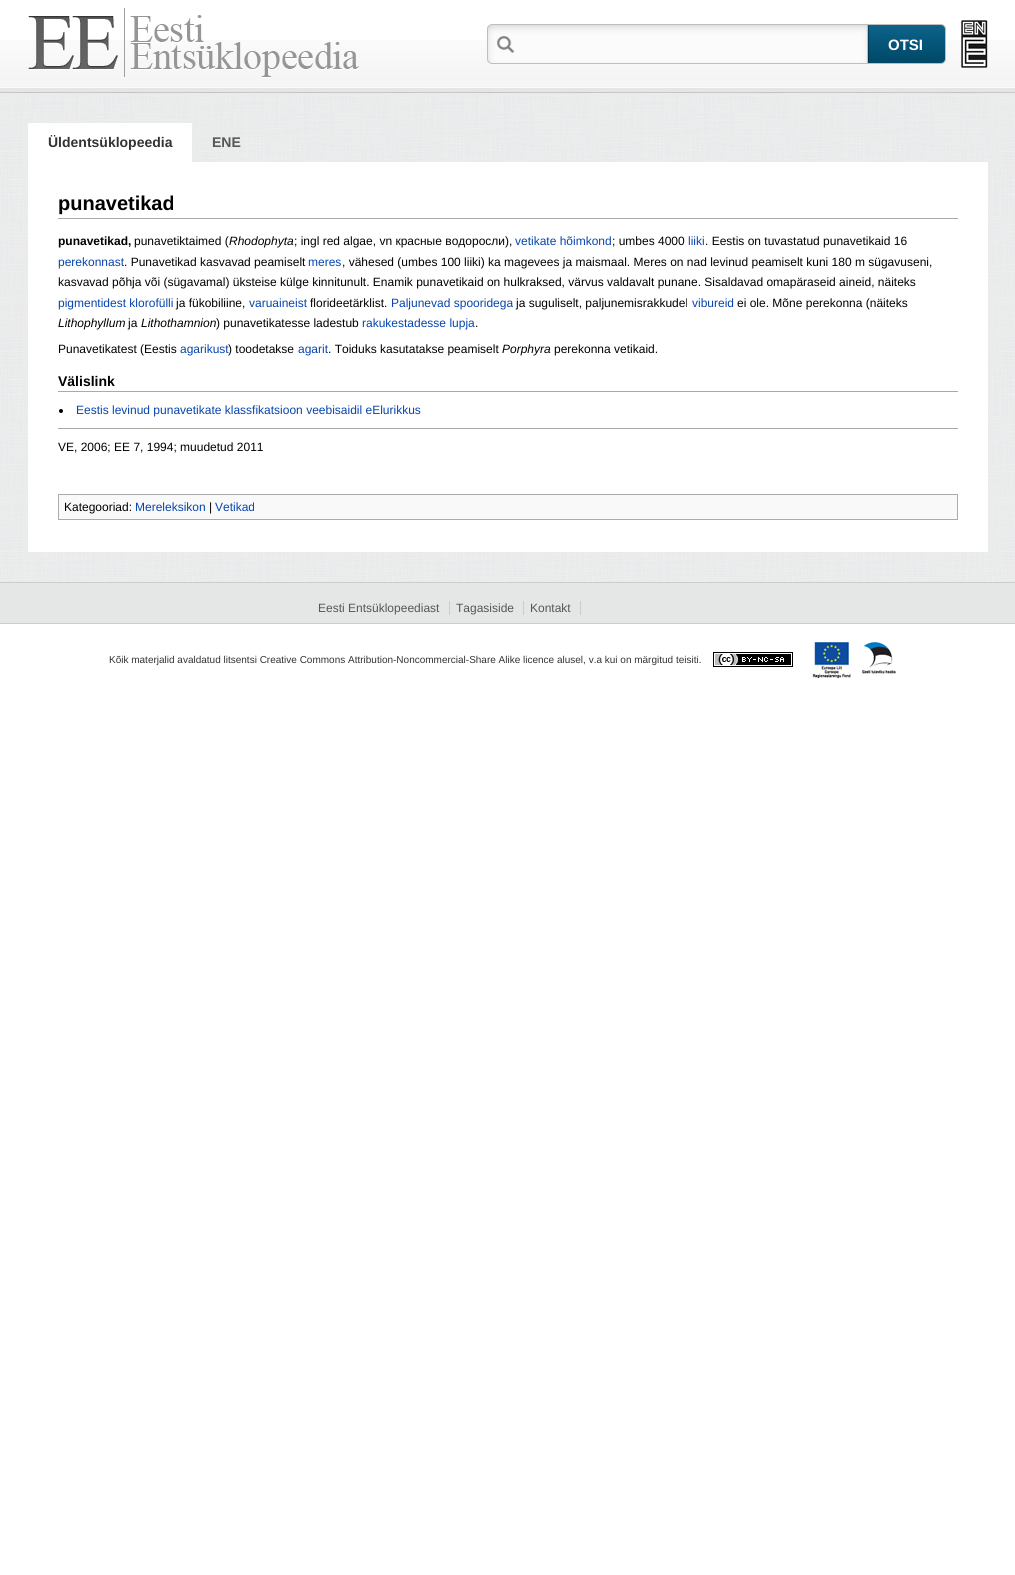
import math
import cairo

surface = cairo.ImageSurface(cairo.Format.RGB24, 1015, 1575)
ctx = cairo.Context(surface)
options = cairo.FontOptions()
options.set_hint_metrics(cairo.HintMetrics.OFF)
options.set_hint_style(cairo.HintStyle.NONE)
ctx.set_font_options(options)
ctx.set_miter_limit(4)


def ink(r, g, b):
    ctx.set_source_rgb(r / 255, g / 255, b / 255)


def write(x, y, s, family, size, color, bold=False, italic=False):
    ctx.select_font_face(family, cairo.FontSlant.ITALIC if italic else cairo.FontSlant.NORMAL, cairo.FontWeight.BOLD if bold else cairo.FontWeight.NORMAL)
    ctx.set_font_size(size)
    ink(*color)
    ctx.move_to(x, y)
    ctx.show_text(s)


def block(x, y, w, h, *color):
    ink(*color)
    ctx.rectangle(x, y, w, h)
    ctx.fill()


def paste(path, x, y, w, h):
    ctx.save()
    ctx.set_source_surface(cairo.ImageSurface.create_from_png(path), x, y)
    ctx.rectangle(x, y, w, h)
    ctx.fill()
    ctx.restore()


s1 = dict(family="Liberation Sans", size=15, color=(255, 255, 255), bold=True)
s2 = dict(family="Liberation Sans", size=14, color=(51, 51, 51), bold=True)
s3 = dict(family="Liberation Sans", size=14, color=(86, 86, 86), bold=True)
s4 = dict(family="Liberation Sans", size=20, color=(0, 0, 0), bold=True)
s5 = dict(family="Liberation Sans", size=12, color=(0, 0, 0), bold=True)
s6 = dict(family="Liberation Sans", size=12, color=(0, 0, 0))
s7 = dict(family="Liberation Sans", size=12, color=(0, 0, 0), italic=True)
s8 = dict(family="Liberation Sans", size=12, color=(6, 69, 173))
s9 = dict(family="Liberation Sans", size=14, color=(0, 0, 0), bold=True)
s10 = dict(family="Liberation Sans", size=12, color=(86, 86, 86))
s11 = dict(family="Liberation Sans", size=10, color=(51, 51, 51))

ink(255, 255, 255)
ctx.paint()
paste("pic1.png", 0, 40, 1015, 53)
paste("pic2.png", 28, 8, 331, 70)
paste("pic3.png", 487, 24, 380, 40)
paste("pic4.png", 867, 24, 79, 40)
write(888, 50, "OTSI", **s1)
paste("pic5.png", 961, 20, 27, 48)
paste("pic6.png", 0, 93, 1015, 489)
block(28, 123, 164, 39, 255, 255, 255)
write(48, 147, "Üldentsüklopeedia", **s2)
write(212, 147, "ENE", **s3)
block(28, 162, 960, 390, 255, 255, 255)
block(58, 218, 900, 1, 170, 170, 170)
write(58, 210, "punavetikad", **s4)
write(58, 245, "punavetikad,", **s5)
write(134, 245, "punavetiktaimed (", **s6)
write(229, 245, "Rhodophyta", **s7)
write(294, 245, "; ingl red algae, vn красные водоросли),", **s6)
write(515, 245, "vetikate hõimkond", **s8)
write(612, 245, "; umbes 4000", **s6)
write(688, 245, "liiki", **s8)
write(705, 245, ". Eestis on tuvastatud punavetikaid 16", **s6)
write(58, 266, "perekonnast", **s8)
write(124, 266, ". Punavetikad kasvavad peamiselt", **s6)
write(308, 266, "meres", **s8)
write(342, 266, ", vähesed (umbes 100 liiki) ka magevees ja maismaal. Meres on nad levinud peamiselt kuni 180 m sügavuseni,", **s6)
write(58, 286, "kasvavad põhja või (sügavamal) üksteise külge kinnitunult. Enamik punavetikaid on hulkraksed, värvus valdavalt punane. Sisaldavad omapäraseid aineid, näiteks", **s6)
write(58, 307, "pigmentidest klorofülli", **s8)
write(176, 307, "ja fükobiliine,", **s6)
write(249, 307, "varuaineist", **s8)
write(310, 307, "florideetärklist.", **s6)
write(391, 307, "Paljunevad spooridega", **s8)
write(516, 307, "ja suguliselt, paljunemisrakkudel", **s6)
write(692, 307, "vibureid", **s8)
write(737, 307, "ei ole. Mõne perekonna (näiteks", **s6)
write(58, 327, "Lithophyllum", **s7)
write(128, 327, "ja", **s6)
write(141, 327, "Lithothamnion", **s7)
write(216, 327, ") punavetikatesse ladestub", **s6)
write(362, 327, "rakukestadesse lupja", **s8)
write(475, 327, ".", **s6)
write(58, 353, "Punavetikatest (Eestis", **s6)
write(180, 353, "agarikust", **s8)
write(228, 353, ") toodetakse", **s6)
write(298, 353, "agarit", **s8)
write(328, 353, ". Toiduks kasutatakse peamiselt", **s6)
write(502, 353, "Porphyra", **s7)
write(554, 353, "perekonna vetikaid.", **s6)
block(58, 391, 900, 1, 170, 170, 170)
write(58, 386, "Välislink", **s9)
ctx.new_path()
ctx.arc(61, 411, 2, 0, 2 * math.pi)
ctx.fill()
write(76, 414, "Eestis levinud punavetikate klassfikatsioon veebisaidil eElurikkus", **s8)
block(58, 428, 900, 1, 170, 170, 170)
write(58, 451, "VE, 2006; EE 7, 1994; muudetud 2011", **s6)
ink(249, 249, 249)
ctx.rectangle(58.5, 494.5, 899, 25)
ctx.fill_preserve()
ink(170, 170, 170)
ctx.set_line_width(1)
ctx.stroke()
write(64, 511, "Kategooriad:", **s6)
write(135, 511, "Mereleksikon", **s8)
write(209, 511, "|", **s6)
write(215, 511, "Vetikad", **s8)
block(0, 583, 1015, 40, 229, 230, 230)
block(0, 582, 1015, 1, 204, 204, 204)
block(0, 623, 1015, 1, 204, 204, 204)
write(318, 612, "Eesti Entsüklopeediast", **s10)
write(456, 612, "Tagasiside", **s10)
block(449, 601, 1, 14, 204, 204, 204)
write(530, 612, "Kontakt", **s10)
block(523, 601, 1, 14, 204, 204, 204)
block(580, 601, 1, 14, 204, 204, 204)
write(109, 663, "Kõik materjalid avaldatud litsentsi Creative Commons Attribution-Noncommercial-Share Alike licence alusel, v.a kui on märgitud teisiti.", **s11)
paste("pic7.png", 713, 652, 80, 15)
paste("pic8.png", 812, 642, 84, 37)
surface.write_to_png("screenshot.png")
